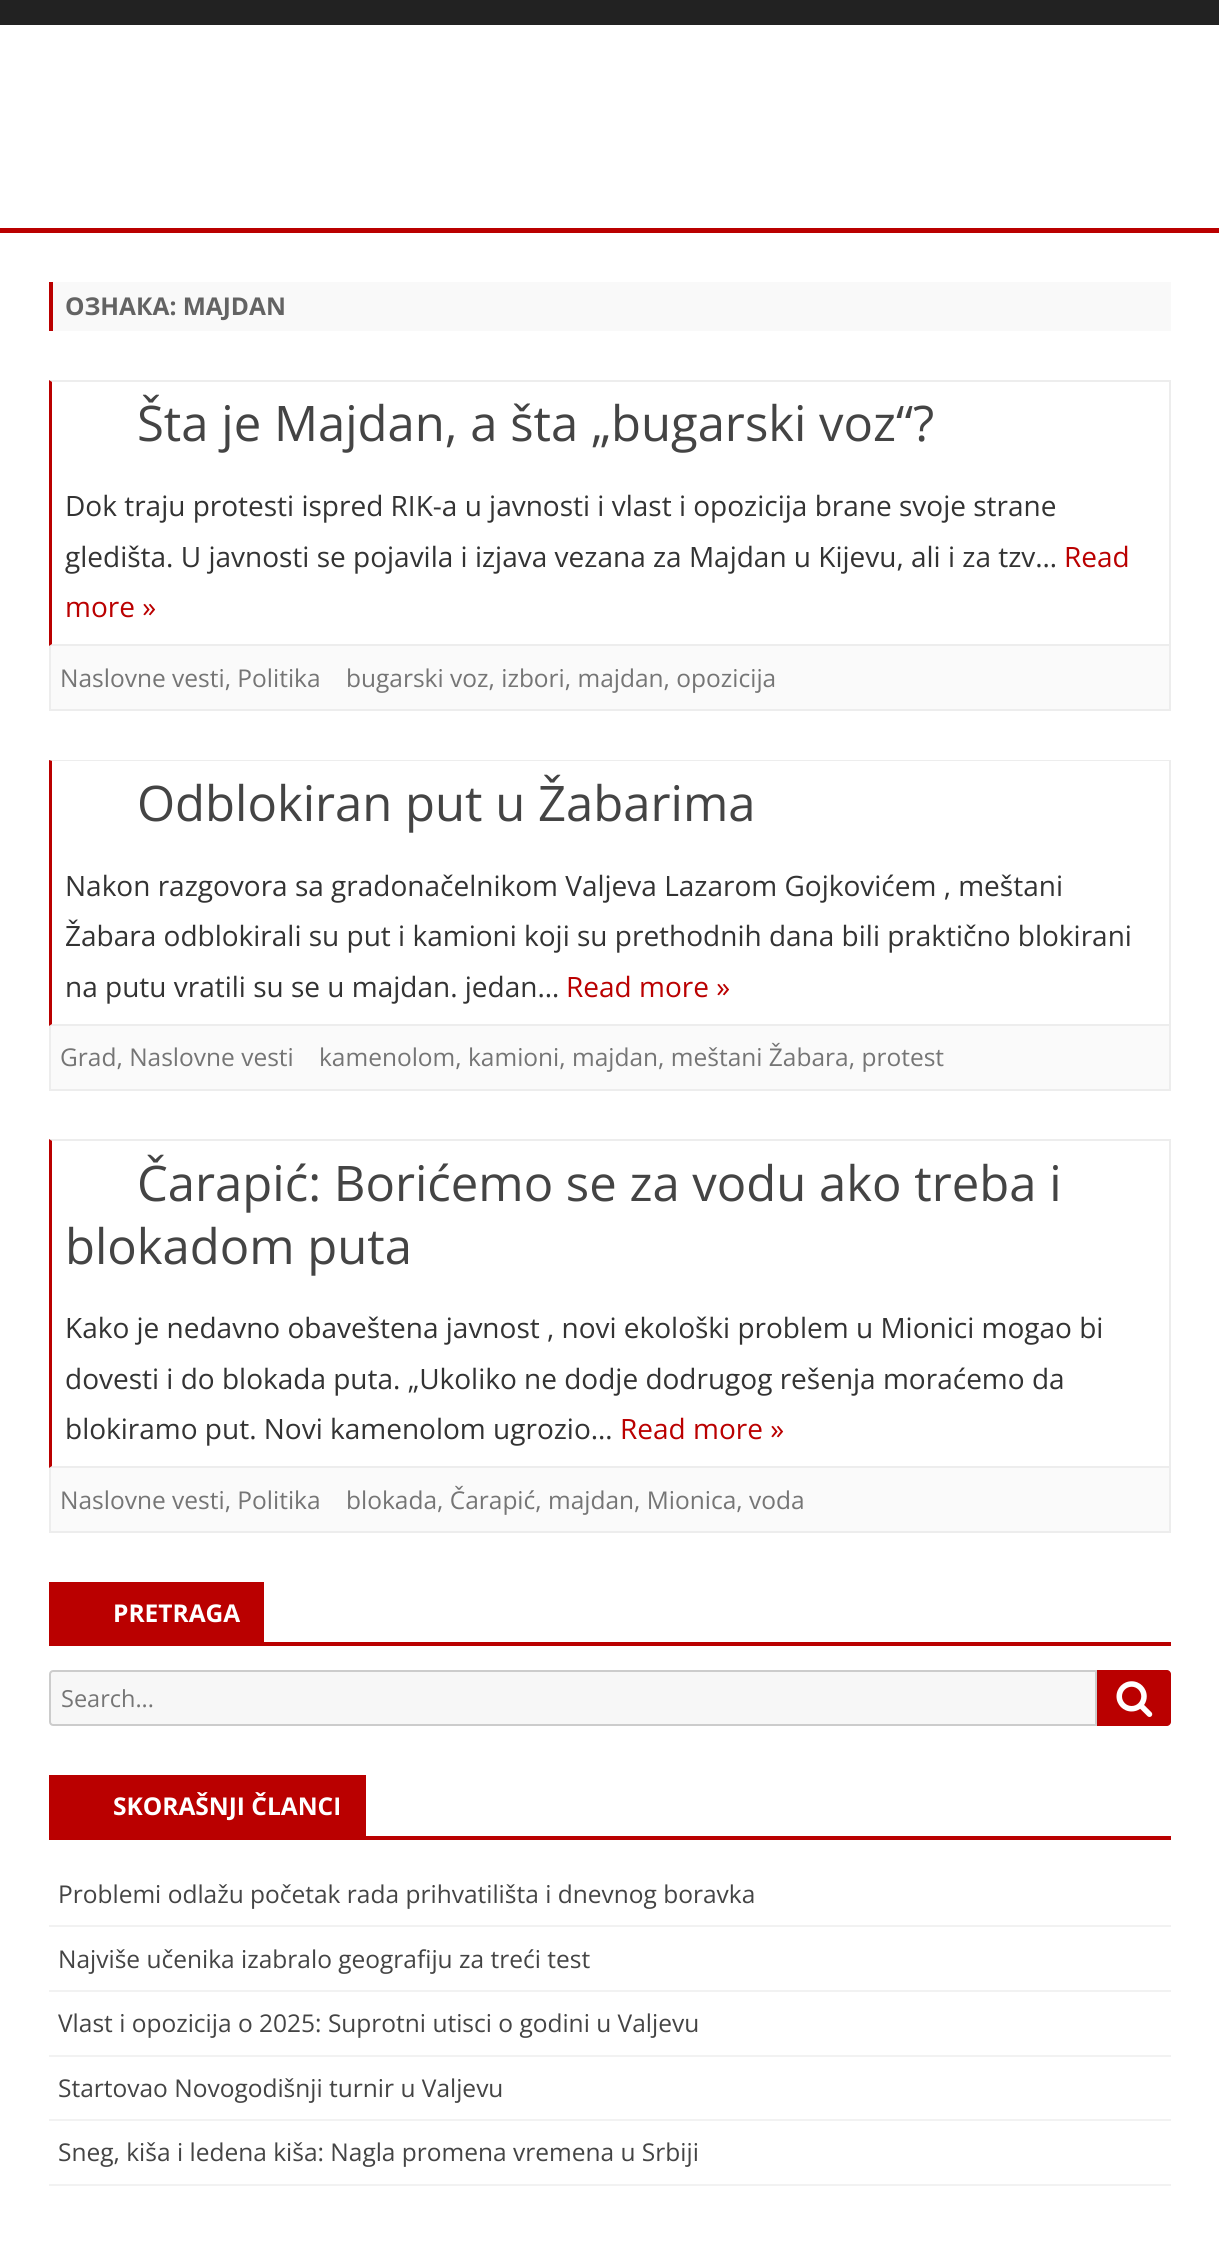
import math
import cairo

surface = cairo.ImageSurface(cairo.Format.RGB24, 1219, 2266)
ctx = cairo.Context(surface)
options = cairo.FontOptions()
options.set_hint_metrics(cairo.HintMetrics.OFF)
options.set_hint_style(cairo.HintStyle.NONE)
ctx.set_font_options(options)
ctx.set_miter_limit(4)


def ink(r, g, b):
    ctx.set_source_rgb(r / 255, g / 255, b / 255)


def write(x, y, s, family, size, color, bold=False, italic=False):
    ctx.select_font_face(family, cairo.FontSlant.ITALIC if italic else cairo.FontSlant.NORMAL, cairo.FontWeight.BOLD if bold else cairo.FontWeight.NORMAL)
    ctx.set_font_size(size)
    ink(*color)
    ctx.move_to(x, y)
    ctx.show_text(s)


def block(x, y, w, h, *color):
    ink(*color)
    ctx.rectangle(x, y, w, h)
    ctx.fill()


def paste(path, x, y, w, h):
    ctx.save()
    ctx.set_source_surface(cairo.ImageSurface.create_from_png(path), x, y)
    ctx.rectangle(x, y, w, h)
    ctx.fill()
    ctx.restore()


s1 = dict(family="Open Sans", size=24.5, color=(99, 99, 99), bold=True)
s2 = dict(family="Open Sans", size=49, color=(68, 68, 68))
s3 = dict(family="Open Sans", size=28, color=(51, 51, 51))
s4 = dict(family="Open Sans", size=28, color=(186, 0, 0))
s5 = dict(family="Open Sans", size=24.5, color=(117, 117, 117))
s6 = dict(family="Open Sans", size=24.5, color=(255, 255, 255), bold=True)
s7 = dict(family="Open Sans", size=23.5, color=(117, 117, 117))
s8 = dict(family="Open Sans", size=24.5, color=(68, 68, 68))

ink(255, 255, 255)
ctx.paint()
block(0, 0, 1219, 25, 34, 34, 34)
block(0, 228, 1219, 5, 186, 0, 0)
block(53, 282, 1118, 49, 249, 249, 249)
block(49, 282, 4, 49, 186, 0, 0)
write(65, 315, "ОЗНАКА: MAJDAN", **s1)
ink(237, 237, 237)
ctx.new_path()
ctx.move_to(49, 380)
ctx.line_to(1171, 380)
ctx.line_to(1169, 382)
ctx.line_to(52, 382)
ctx.close_path()
ctx.fill()
block(1169, 380, 2, 266, 237, 237, 237)
ctx.new_path()
ctx.move_to(1171, 646)
ctx.line_to(49, 646)
ctx.line_to(52, 644)
ctx.line_to(1169, 644)
ctx.close_path()
ctx.fill()
ink(186, 0, 0)
ctx.new_path()
ctx.move_to(49, 646)
ctx.line_to(49, 380)
ctx.line_to(52, 382)
ctx.line_to(52, 644)
ctx.close_path()
ctx.fill()
write(137, 441, "Šta je Majdan, a šta „bugarski voz“?", **s2)
write(65, 516, "Dok traju protesti ispred RIK-a u javnosti i vlast i opozicija brane svoje strane", **s3)
write(65, 567, "gledišta. U javnosti se pojavila i izjava vezana za Majdan u Kijevu, ali i za tzv…", **s3)
write(1064, 567, "Read", **s4)
write(65, 617, "more »", **s4)
block(51, 646, 1118, 63, 250, 250, 250)
block(1169, 646, 2, 65, 237, 237, 237)
block(49, 709, 1122, 2, 237, 237, 237)
block(49, 646, 2, 65, 237, 237, 237)
write(60, 687, "Naslovne vesti, Politika", **s5)
write(346, 687, "bugarski voz, izbori, majdan, opozicija", **s5)
ink(237, 237, 237)
ctx.new_path()
ctx.move_to(49, 760)
ctx.line_to(1171, 760)
ctx.line_to(1169, 761)
ctx.line_to(52, 761)
ctx.close_path()
ctx.fill()
block(1169, 760, 2, 266, 237, 237, 237)
ctx.new_path()
ctx.move_to(1171, 1026)
ctx.line_to(49, 1026)
ctx.line_to(52, 1024)
ctx.line_to(1169, 1024)
ctx.close_path()
ctx.fill()
ink(186, 0, 0)
ctx.new_path()
ctx.move_to(49, 1026)
ctx.line_to(49, 760)
ctx.line_to(52, 761)
ctx.line_to(52, 1024)
ctx.close_path()
ctx.fill()
write(137, 821, "Odblokiran put u Žabarima", **s2)
write(65, 896, "Nakon razgovora sa gradonačelnikom Valjeva Lazarom Gojkovićem , meštani", **s3)
write(65, 946, "Žabara odblokirali su put i kamioni koji su prethodnih dana bili praktično blokirani", **s3)
write(65, 997, "na putu vratili su se u majdan. jedan…", **s3)
write(566, 997, "Read more »", **s4)
block(51, 1026, 1118, 63, 250, 250, 250)
block(1169, 1026, 2, 64, 237, 237, 237)
block(49, 1089, 1122, 2, 237, 237, 237)
block(49, 1026, 2, 64, 237, 237, 237)
write(60, 1066, "Grad, Naslovne vesti", **s5)
write(319, 1066, "kamenolom, kamioni, majdan, meštani Žabara, protest", **s5)
ink(237, 237, 237)
ctx.new_path()
ctx.move_to(49, 1139)
ctx.line_to(1171, 1139)
ctx.line_to(1169, 1141)
ctx.line_to(52, 1141)
ctx.close_path()
ctx.fill()
block(1169, 1139, 2, 329, 237, 237, 237)
ctx.new_path()
ctx.move_to(1171, 1468)
ctx.line_to(49, 1468)
ctx.line_to(52, 1466)
ctx.line_to(1169, 1466)
ctx.close_path()
ctx.fill()
ink(186, 0, 0)
ctx.new_path()
ctx.move_to(49, 1468)
ctx.line_to(49, 1139)
ctx.line_to(52, 1141)
ctx.line_to(52, 1466)
ctx.close_path()
ctx.fill()
write(137, 1201, "Čarapić: Borićemo se za vodu ako treba i", **s2)
write(65, 1264, "blokadom puta", **s2)
write(65, 1338, "Kako je nedavno obaveštena javnost , novi ekološki problem u Mionici mogao bi", **s3)
write(65, 1389, "dovesti i do blokada puta. „Ukoliko ne dodje dodrugog rešenja moraćemo da", **s3)
write(65, 1439, "blokiramo put. Novi kamenolom ugrozio…", **s3)
write(620, 1439, "Read more »", **s4)
block(51, 1468, 1118, 63, 250, 250, 250)
block(1169, 1468, 2, 65, 237, 237, 237)
block(49, 1531, 1122, 2, 237, 237, 237)
block(49, 1468, 2, 65, 237, 237, 237)
write(60, 1509, "Naslovne vesti, Politika", **s5)
write(346, 1509, "blokada, Čarapić, majdan, Mionica, voda", **s5)
block(49, 1642, 1122, 4, 186, 0, 0)
block(49, 1582, 215, 60, 186, 0, 0)
write(113, 1622, "PRETRAGA", **s6)
ink(247, 247, 247)
ctx.new_path()
ctx.move_to(53, 1671)
ctx.line_to(1096, 1671)
ctx.line_to(1096, 1725)
ctx.line_to(53, 1725)
ctx.curve_to(51.5, 1725, 50, 1723.5, 50, 1722)
ctx.line_to(50, 1674)
ctx.curve_to(50, 1672.5, 51.5, 1671, 53, 1671)
ctx.close_path()
ctx.fill_preserve()
ink(204, 204, 204)
ctx.stroke()
write(61, 1707, "Search...", **s7)
ink(186, 0, 0)
ctx.new_path()
ctx.move_to(1097, 1670)
ctx.line_to(1167, 1670)
ctx.curve_to(1169, 1670, 1171, 1672, 1171, 1674)
ctx.line_to(1171, 1722)
ctx.curve_to(1171, 1724, 1169, 1726, 1167, 1726)
ctx.line_to(1097, 1726)
ctx.close_path()
ctx.fill()
paste("pic1.png", 1116, 1681, 37, 36)
block(49, 1836, 1122, 4, 186, 0, 0)
block(49, 1775, 317, 61, 186, 0, 0)
write(113, 1815, "SKORAŠNJI ČLANCI", **s6)
block(49, 1925, 1122, 2, 242, 242, 242)
write(58, 1903, "Problemi odlažu početak rada prihvatilišta i dnevnog boravka", **s8)
block(49, 1990, 1122, 2, 242, 242, 242)
write(58, 1968, "Najviše učenika izabralo geografiju za treći test", **s8)
block(49, 2055, 1122, 2, 242, 242, 242)
write(58, 2032, "Vlast i opozicija o 2025: Suprotni utisci o godini u Valjevu", **s8)
block(49, 2119, 1122, 2, 242, 242, 242)
write(58, 2097, "Startovao Novogodišnji turnir u Valjevu", **s8)
block(49, 2184, 1122, 2, 242, 242, 242)
write(58, 2161, "Sneg, kiša i ledena kiša: Nagla promena vremena u Srbiji", **s8)
surface.write_to_png("screenshot.png")
